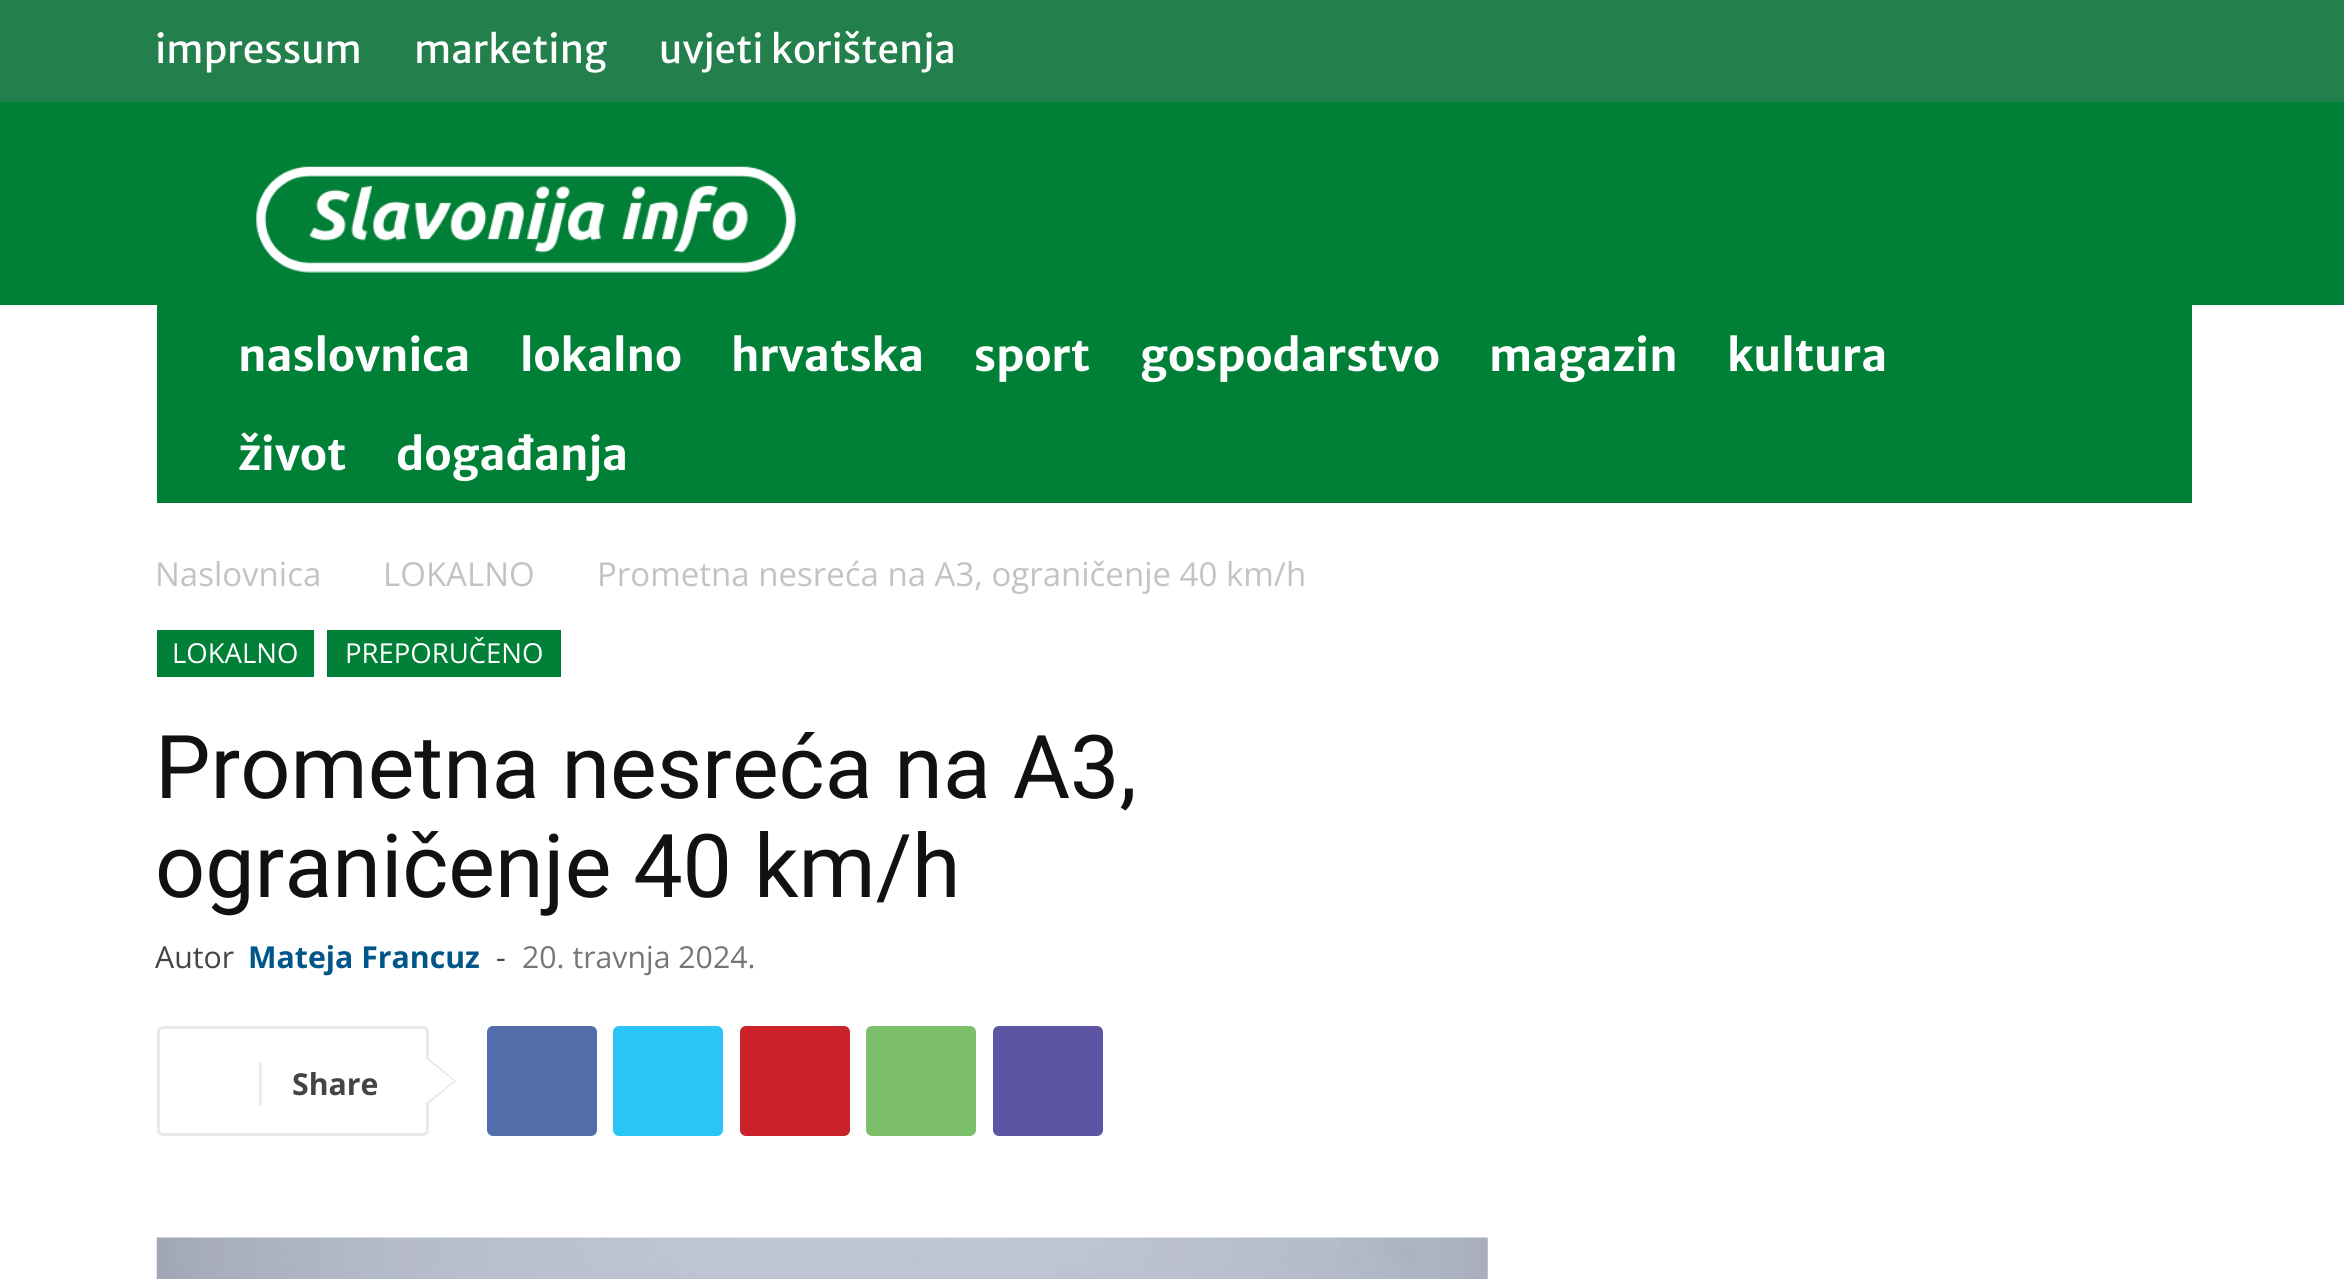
import math
import cairo

surface = cairo.ImageSurface(cairo.Format.RGB24, 2344, 1279)
ctx = cairo.Context(surface)
options = cairo.FontOptions()
options.set_hint_metrics(cairo.HintMetrics.OFF)
options.set_hint_style(cairo.HintStyle.NONE)
ctx.set_font_options(options)
ctx.set_miter_limit(4)


def ink(r, g, b):
    ctx.set_source_rgb(r / 255, g / 255, b / 255)


def write(x, y, s, family, size, color, bold=False, italic=False):
    ctx.select_font_face(family, cairo.FontSlant.ITALIC if italic else cairo.FontSlant.NORMAL, cairo.FontWeight.BOLD if bold else cairo.FontWeight.NORMAL)
    ctx.set_font_size(size)
    ink(*color)
    ctx.move_to(x, y)
    ctx.show_text(s)


def block(x, y, w, h, *color):
    ink(*color)
    ctx.rectangle(x, y, w, h)
    ctx.fill()


def round_path(x, y, w, h, r):
    ctx.new_sub_path()
    for i, (u, v) in enumerate([(x + w - r, y + h - r), (x + r, y + h - r), (x + r, y + r), (x + w - r, y + r)]):
        ctx.arc(u, v, r, i * math.pi / 2, (i + 1) * math.pi / 2)
    ctx.close_path()


def paste(path, x, y, w, h):
    ctx.save()
    ctx.set_source_surface(cairo.ImageSurface.create_from_png(path), x, y)
    ctx.rectangle(x, y, w, h)
    ctx.fill()
    ctx.restore()


s1 = dict(family="Merriweather Sans", size=38.5, color=(255, 255, 255))
s2 = dict(family="Merriweather Sans", size=44, color=(255, 255, 255), bold=True)
s3 = dict(family="Open Sans", size=33, color=(195, 195, 195))
s4 = dict(family="Open Sans", size=27.5, color=(255, 255, 255))
s5 = dict(family="Roboto", size=88, color=(17, 17, 17))
s6 = dict(family="Open Sans", size=30.25, color=(68, 68, 68))
s7 = dict(family="Open Sans", size=30.25, color=(0, 86, 137), bold=True)
s8 = dict(family="Open Sans", size=30.25, color=(118, 118, 118))
s9 = dict(family="Open Sans", size=30.25, color=(68, 68, 68), bold=True)

ink(255, 255, 255)
ctx.paint()
block(0, 0, 2344, 102, 35, 127, 75)
write(155, 63, "impressum", **s1)
write(414, 63, "marketing", **s1)
write(659, 63, "uvjeti korištenja", **s1)
block(0, 102, 2344, 203, 0, 128, 55)
paste("pic1.png", 250, 166, 553, 139)
block(157, 305, 2035, 198, 0, 128, 55)
write(238, 371, "naslovnica", **s2)
write(520, 371, "lokalno", **s2)
write(731, 371, "hrvatska", **s2)
write(974, 371, "sport", **s2)
write(1140, 371, "gospodarstvo", **s2)
write(1489, 371, "magazin", **s2)
write(1727, 371, "kultura", **s2)
write(238, 470, "život", **s2)
write(396, 470, "događanja", **s2)
write(155, 586, "Naslovnica", **s3)
write(383, 586, "LOKALNO", **s3)
write(597, 586, "Prometna nesreća na A3, ograničenje 40 km/h", **s3)
block(157, 630, 157, 47, 0, 128, 55)
write(172, 663, "LOKALNO", **s4)
block(327, 630, 234, 47, 0, 128, 55)
write(345, 663, "PREPORUČENO", **s4)
write(155, 798, "Prometna nesreća na A3,", **s5)
write(155, 897, "ograničenje 40 km/h", **s5)
write(155, 968, "Autor", **s6)
write(248, 968, "Mateja Francuz", **s7)
write(496, 968, "-", **s6)
write(522, 968, "20. travnja 2024.", **s8)
round_path(158.5, 1027.5, 269, 107, 4.5)
ink(233, 233, 233)
ctx.set_line_width(3)
ctx.stroke()
ctx.new_path()
ctx.move_to(426, 1106)
ctx.line_to(426, 1056)
ctx.line_to(456, 1081)
ctx.close_path()
ctx.fill()
block(259, 1062, 3, 44, 235, 235, 235)
write(292, 1095, "Share", **s9)
ink(255, 255, 255)
ctx.new_path()
ctx.move_to(426, 1103)
ctx.line_to(426, 1059)
ctx.line_to(454, 1081)
ctx.close_path()
ctx.fill()
ink(81, 110, 171)
round_path(487, 1026, 110, 110, 6)
ctx.fill()
ink(41, 197, 246)
round_path(613, 1026, 110, 110, 6)
ctx.fill()
ink(202, 33, 42)
round_path(740, 1026, 110, 110, 6)
ctx.fill()
ink(123, 191, 106)
round_path(866, 1026, 110, 110, 6)
ctx.fill()
ink(93, 84, 164)
round_path(993, 1026, 110, 110, 6)
ctx.fill()
paste("pic2.png", 156, 1237, 1332, 42)
surface.write_to_png("screenshot.png")
